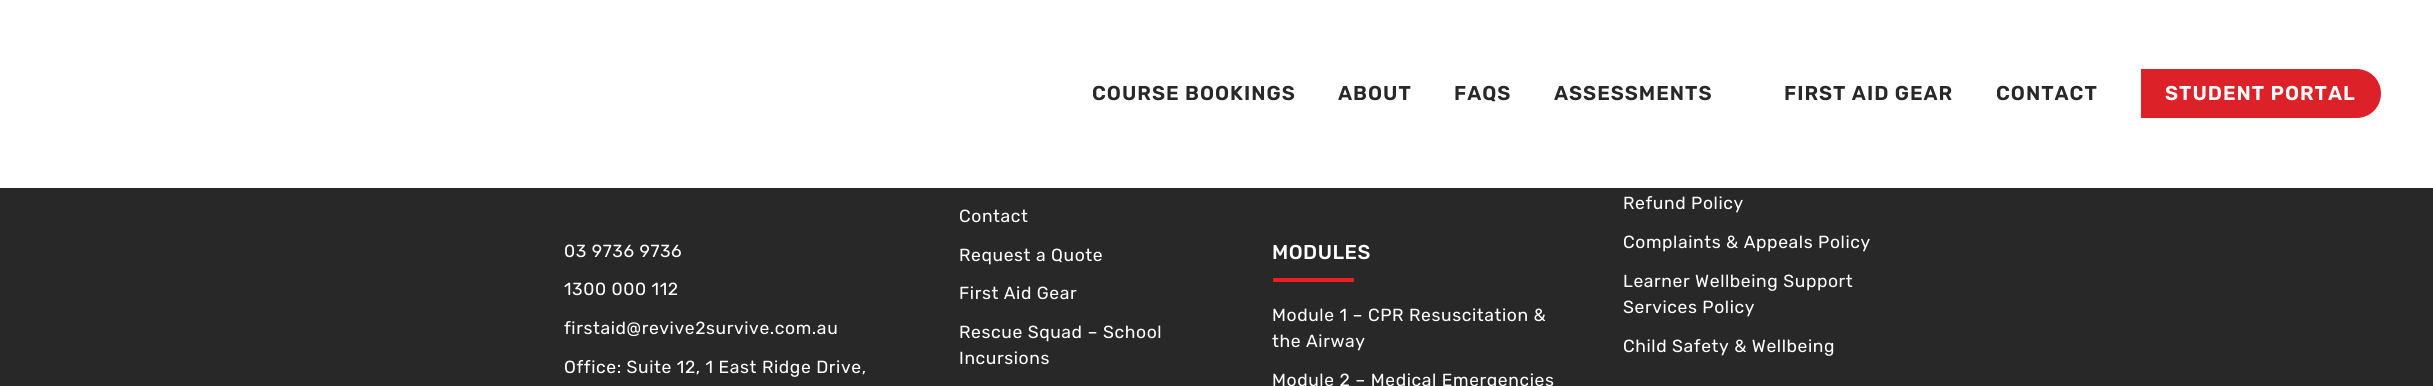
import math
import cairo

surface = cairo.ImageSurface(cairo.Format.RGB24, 2433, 386)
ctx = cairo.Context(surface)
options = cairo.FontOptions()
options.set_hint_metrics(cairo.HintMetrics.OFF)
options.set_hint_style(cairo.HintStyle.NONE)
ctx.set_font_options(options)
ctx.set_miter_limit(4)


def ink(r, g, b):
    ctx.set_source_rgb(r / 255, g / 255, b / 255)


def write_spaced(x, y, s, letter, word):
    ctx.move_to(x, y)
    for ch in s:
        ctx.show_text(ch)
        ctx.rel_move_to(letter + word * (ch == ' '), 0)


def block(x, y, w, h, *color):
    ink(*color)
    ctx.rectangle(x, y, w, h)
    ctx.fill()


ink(40, 40, 40)
ctx.paint()
block(0, 0, 2433, 188, 255, 255, 255)
ctx.select_font_face("Rubik SemiBold")
ctx.set_font_size(20)
ink(40, 40, 40)
write_spaced(1092, 100, "COURSE BOOKINGS", 1, 0)
write_spaced(1338, 100, "ABOUT", 1, 0)
write_spaced(1454, 100, "FAQS", 1, 0)
write_spaced(1554, 100, "ASSESSMENTS", 1, 0)
write_spaced(1784, 100, "FIRST AID GEAR", 1, 0)
write_spaced(1996, 100, "CONTACT", 1, 0)
ink(220, 34, 40)
ctx.new_path()
ctx.move_to(2139.5, 67.5)
ctx.line_to(2356.5, 67.5)
ctx.curve_to(2371, 67.5, 2382.5, 79, 2382.5, 93.5)
ctx.curve_to(2382.5, 108, 2371, 119.5, 2356.5, 119.5)
ctx.line_to(2139.5, 119.5)
ctx.close_path()
ctx.fill_preserve()
ink(255, 255, 255)
ctx.set_line_width(3)
ctx.stroke()
write_spaced(2165, 100, "STUDENT PORTAL", 1, 0)
ctx.select_font_face("Rubik")
ctx.set_font_size(17.5)
write_spaced(564, 257, "03 9736 9736", 0.6, 0)
write_spaced(564, 295, "1300 000 112", 0.6, 0)
write_spaced(564, 334, "firstaid@revive2survive.com.au", 0.6, 0)
write_spaced(564, 373, "Office: Suite 12, 1 East Ridge Drive,", 0.6, 0)
write_spaced(959, 222, "Contact", 0.6, 0)
write_spaced(959, 261, "Request a Quote", 0.6, 0)
write_spaced(959, 299, "First Aid Gear", 0.6, 0)
write_spaced(959, 338, "Rescue Squad – School", 0.6, 0)
write_spaced(959, 364, "Incursions", 0.6, 0)
ctx.select_font_face("Rubik Medium")
ctx.set_font_size(20)
write_spaced(1272, 259, "MODULES", 0.5, 0)
block(1273, 278, 81, 4, 237, 28, 36)
ctx.select_font_face("Rubik")
ctx.set_font_size(17.5)
ink(255, 255, 255)
write_spaced(1272, 321, "Module 1 – CPR Resuscitation &", 0.6, 0)
write_spaced(1272, 347, "the Airway", 0.6, 0)
write_spaced(1272, 386, "Module 2 – Medical Emergencies", 0.6, 0)
write_spaced(1623, 209, "Refund Policy", 0.6, 0)
write_spaced(1623, 248, "Complaints & Appeals Policy", 0.6, 0)
write_spaced(1623, 287, "Learner Wellbeing Support", 0.6, 0)
write_spaced(1623, 313, "Services Policy", 0.6, 0)
write_spaced(1623, 352, "Child Safety & Wellbeing", 0.6, 0)
surface.write_to_png("screenshot.png")
